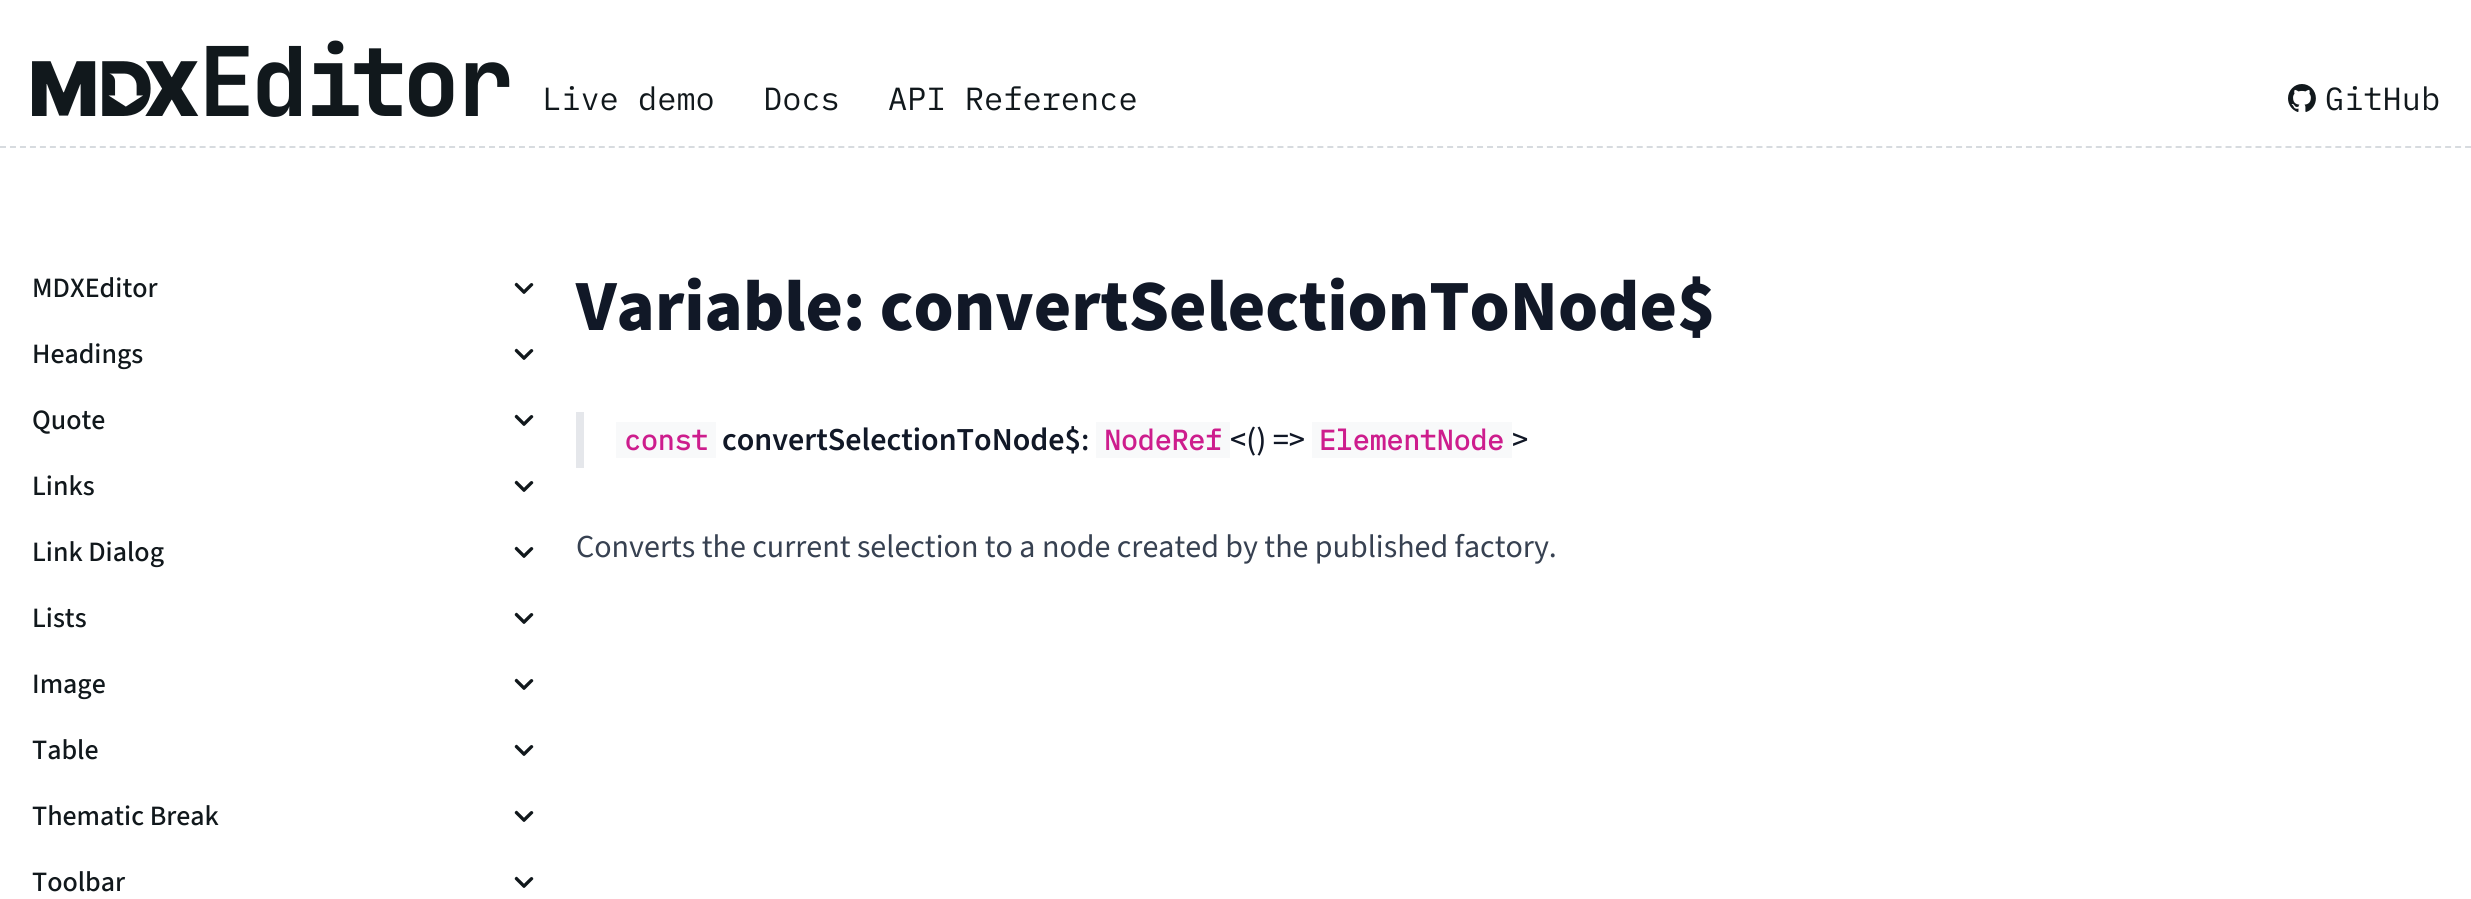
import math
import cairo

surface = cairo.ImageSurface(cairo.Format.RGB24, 2471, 899)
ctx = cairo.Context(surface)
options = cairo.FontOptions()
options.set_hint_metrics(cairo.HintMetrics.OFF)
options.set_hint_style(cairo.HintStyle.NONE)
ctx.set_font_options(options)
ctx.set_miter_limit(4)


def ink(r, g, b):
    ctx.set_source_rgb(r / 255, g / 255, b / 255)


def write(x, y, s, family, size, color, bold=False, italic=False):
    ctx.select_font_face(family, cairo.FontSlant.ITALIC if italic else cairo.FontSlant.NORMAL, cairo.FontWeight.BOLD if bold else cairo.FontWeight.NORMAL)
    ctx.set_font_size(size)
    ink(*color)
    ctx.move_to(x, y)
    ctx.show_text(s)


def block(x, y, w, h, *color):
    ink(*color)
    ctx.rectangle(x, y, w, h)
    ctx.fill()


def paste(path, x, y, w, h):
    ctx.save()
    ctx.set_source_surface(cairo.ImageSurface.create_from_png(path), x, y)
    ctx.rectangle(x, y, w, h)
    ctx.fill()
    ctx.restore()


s1 = dict(family="IBM Plex Mono", size=32, color=(17, 24, 28))
s2 = dict(family="Source Sans 3 Medium", size=28, color=(17, 24, 28))
s3 = dict(family="Source Sans 3 ExtraBold", size=72, color=(17, 24, 39))
s4 = dict(family="IBM Plex Mono", size=28, color=(205, 29, 141), bold=True)
s5 = dict(family="Source Sans 3 SemiBold", size=32, color=(17, 24, 39))
s6 = dict(family="Source Sans 3 Medium", size=32, color=(17, 24, 39))
s7 = dict(family="Source Sans 3", size=32, color=(55, 65, 81))

ink(255, 255, 255)
ctx.paint()
ctx.new_path()
ctx.move_to(0, 147)
ctx.line_to(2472, 147)
ink(215, 219, 223)
ctx.set_dash([6, 3.98])
ctx.stroke()
paste("pic1.png", 32, 40, 478, 77)
write(542, 110, "Live demo", **s1)
write(763, 110, "Docs", **s1)
write(888, 110, "API Reference", **s1)
paste("pic2.png", 2288, 84, 28, 28)
write(2325, 110, "GitHub", **s1)
write(32, 297, "MDXEditor", **s2)
paste("pic3.png", 514, 282, 20, 12)
write(32, 363, "Headings", **s2)
paste("pic3.png", 514, 348, 20, 12)
write(32, 429, "Quote", **s2)
paste("pic3.png", 514, 414, 20, 12)
write(32, 495, "Links", **s2)
paste("pic3.png", 514, 480, 20, 12)
write(32, 561, "Link Dialog", **s2)
paste("pic3.png", 514, 546, 20, 12)
write(32, 627, "Lists", **s2)
paste("pic3.png", 514, 612, 20, 12)
write(32, 693, "Image", **s2)
paste("pic3.png", 514, 678, 20, 12)
write(32, 759, "Table", **s2)
paste("pic3.png", 514, 744, 20, 12)
write(32, 825, "Thematic Break", **s2)
paste("pic3.png", 514, 810, 20, 12)
write(32, 891, "Toolbar", **s2)
paste("pic3.png", 514, 876, 20, 12)
write(576, 330, "Variable: convertSelectionToNode$", **s3)
block(576, 412, 8, 56, 229, 231, 235)
block(616, 422, 100, 36, 248, 249, 250)
write(624, 450, "const", **s4)
write(722, 450, "convertSelectionToNode$", **s5)
write(1081, 450, ":", **s6)
block(1096, 422, 134, 36, 248, 249, 250)
write(1104, 450, "NodeRef", **s4)
write(1230, 450, "<() =>", **s6)
block(1312, 422, 200, 36, 248, 249, 250)
write(1319, 450, "ElementNode", **s4)
write(1512, 450, ">", **s6)
write(576, 557, "Converts the current selection to a node created by the published factory.", **s7)
surface.write_to_png("screenshot.png")
